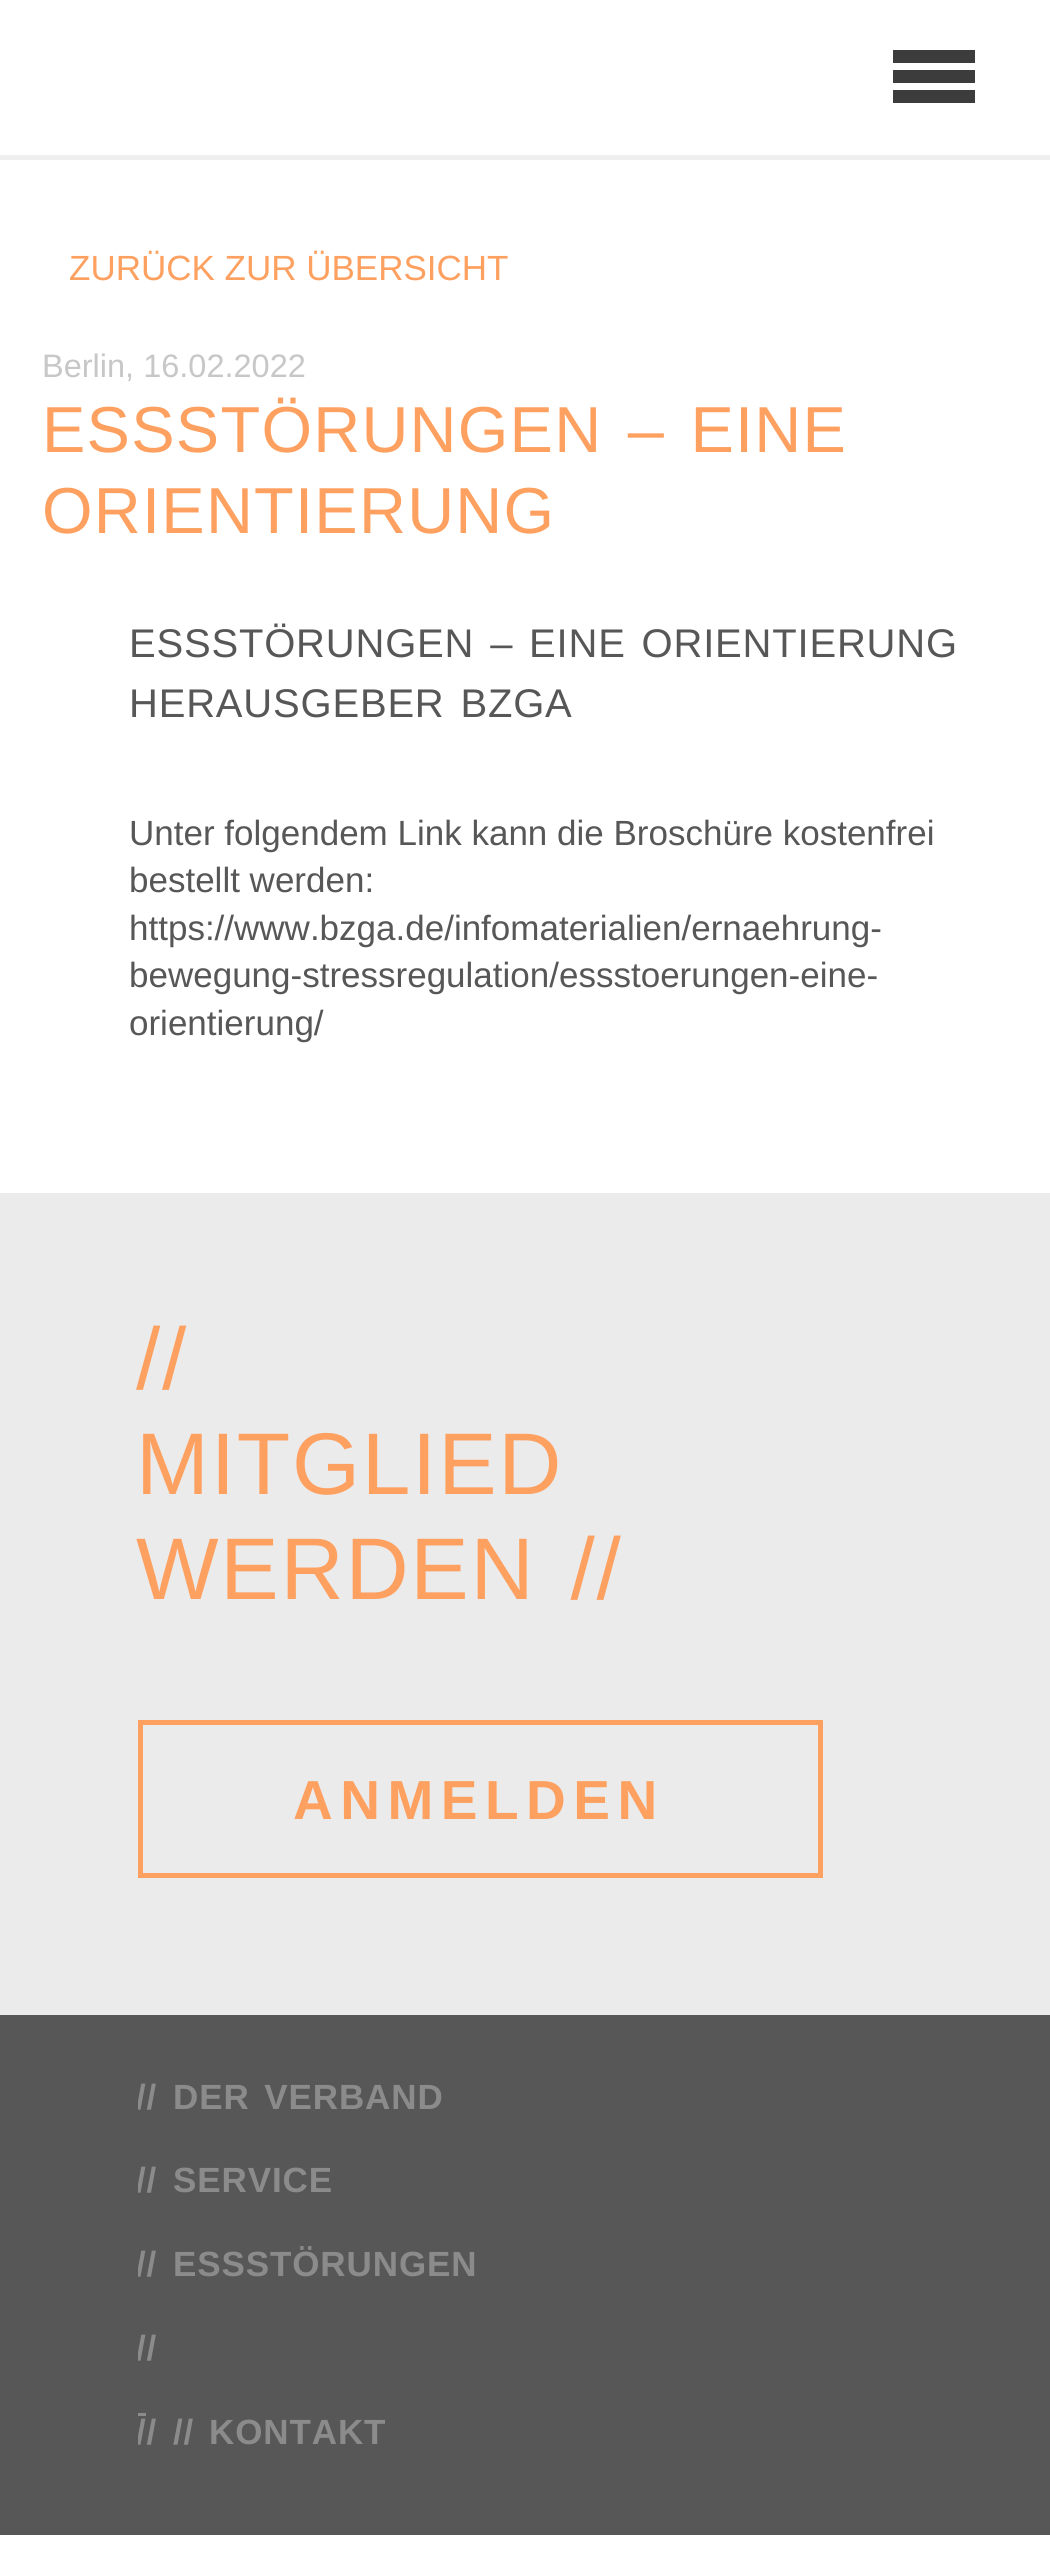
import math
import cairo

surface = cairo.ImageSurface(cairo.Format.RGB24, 1050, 2562)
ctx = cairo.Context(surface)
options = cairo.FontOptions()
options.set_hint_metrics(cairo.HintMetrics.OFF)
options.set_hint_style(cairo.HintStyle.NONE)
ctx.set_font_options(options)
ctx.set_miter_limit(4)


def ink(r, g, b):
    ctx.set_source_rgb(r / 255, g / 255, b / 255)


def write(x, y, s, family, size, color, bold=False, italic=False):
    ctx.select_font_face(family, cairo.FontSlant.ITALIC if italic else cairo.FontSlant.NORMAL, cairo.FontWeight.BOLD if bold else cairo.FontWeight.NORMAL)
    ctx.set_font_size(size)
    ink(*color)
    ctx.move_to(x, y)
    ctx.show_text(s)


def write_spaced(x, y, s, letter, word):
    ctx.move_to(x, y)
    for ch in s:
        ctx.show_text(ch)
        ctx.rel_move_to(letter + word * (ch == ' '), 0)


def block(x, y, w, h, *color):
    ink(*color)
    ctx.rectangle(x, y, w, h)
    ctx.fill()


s1 = dict(family="Liberation Sans", size=35, color=(253, 160, 96))
s2 = dict(family="Liberation Sans", size=32.5, color=(199, 199, 199))
s3 = dict(family="Liberation Sans", size=35, color=(87, 87, 87))

ink(255, 255, 255)
ctx.paint()
block(0, 155, 1050, 5, 239, 239, 239)
block(893, 50, 82, 13, 60, 60, 60)
block(893, 90, 82, 13, 60, 60, 60)
block(893, 70, 82, 13, 60, 60, 60)
write(69, 280, "ZURÜCK ZUR ÜBERSICHT", **s1)
write(42, 377, "Berlin, 16.02.2022", **s2)
ctx.set_font_size(65)
ink(253, 160, 96)
write_spaced(42, 452, "ESSSTÖRUNGEN – EINE", 1.25, 6)
write_spaced(42, 533, "ORIENTIERUNG", 1.25, 0)
ctx.set_font_size(40)
ink(87, 87, 87)
write_spaced(129, 657, "ESSSTÖRUNGEN – EINE ORIENTIERUNG", 0.8, 4)
write_spaced(129, 717, "HERAUSGEBER BZGA", 0.8, 4)
write(129, 845, "Unter folgendem Link kann die Broschüre kostenfrei", **s3)
write(129, 892, "bestellt werden:", **s3)
write(129, 940, "https://www.bzga.de/infomaterialien/ernaehrung-", **s3)
write(129, 987, "bewegung-stressregulation/essstoerungen-eine-", **s3)
write(129, 1035, "orientierung/", **s3)
block(0, 1193, 1050, 822, 235, 235, 235)
ctx.set_font_size(87.5)
ink(253, 160, 96)
write_spaced(136, 1389, "//", 1.75, 0)
write_spaced(136, 1494, "MITGLIED", 1.75, 0)
write_spaced(136, 1599, "WERDEN //", 1.75, 9)
ctx.rectangle(140.5, 1722.5, 680, 153)
ctx.set_line_width(5)
ctx.stroke()
ctx.select_font_face("Liberation Sans", cairo.FontSlant.NORMAL, cairo.FontWeight.BOLD)
ctx.set_font_size(55)
write_spaced(293, 1819, "ANMELDEN", 7.5, 0)
block(0, 2015, 1050, 520, 87, 87, 87)
ctx.save()
ctx.rectangle(138, 2065, 775, 60)
ctx.clip()
ctx.set_font_size(35)
ink(139, 139, 139)
write_spaced(136, 2109, "//", 0.9, 0)
ctx.restore()
ctx.set_font_size(35)
ink(139, 139, 139)
write_spaced(173, 2109, "DER VERBAND", 0.9, 4)
ctx.save()
ctx.rectangle(138, 2150, 775, 58)
ctx.clip()
write_spaced(136, 2192, "//", 0.9, 0)
ctx.restore()
write_spaced(173, 2192, "SERVICE", 0.9, 0)
ctx.save()
ctx.rectangle(138, 2233, 775, 60)
ctx.clip()
write_spaced(136, 2276, "//", 0.9, 0)
ctx.restore()
write_spaced(173, 2276, "ESSSTÖRUNGEN", 0.9, 0)
ctx.save()
ctx.rectangle(138, 2318, 775, 57)
ctx.clip()
write_spaced(136, 2360, "//", 0.9, 0)
ctx.restore()
block(138, 2413, 8, 3, 139, 139, 139)
ctx.save()
ctx.rectangle(138, 2400, 775, 60)
ctx.clip()
write_spaced(136, 2444, "//", 0.9, 0)
ctx.restore()
write_spaced(173, 2444, "//", 0.9, 0)
write_spaced(209, 2444, "KONTAKT", 0.9, 0)
surface.write_to_png("screenshot.png")
